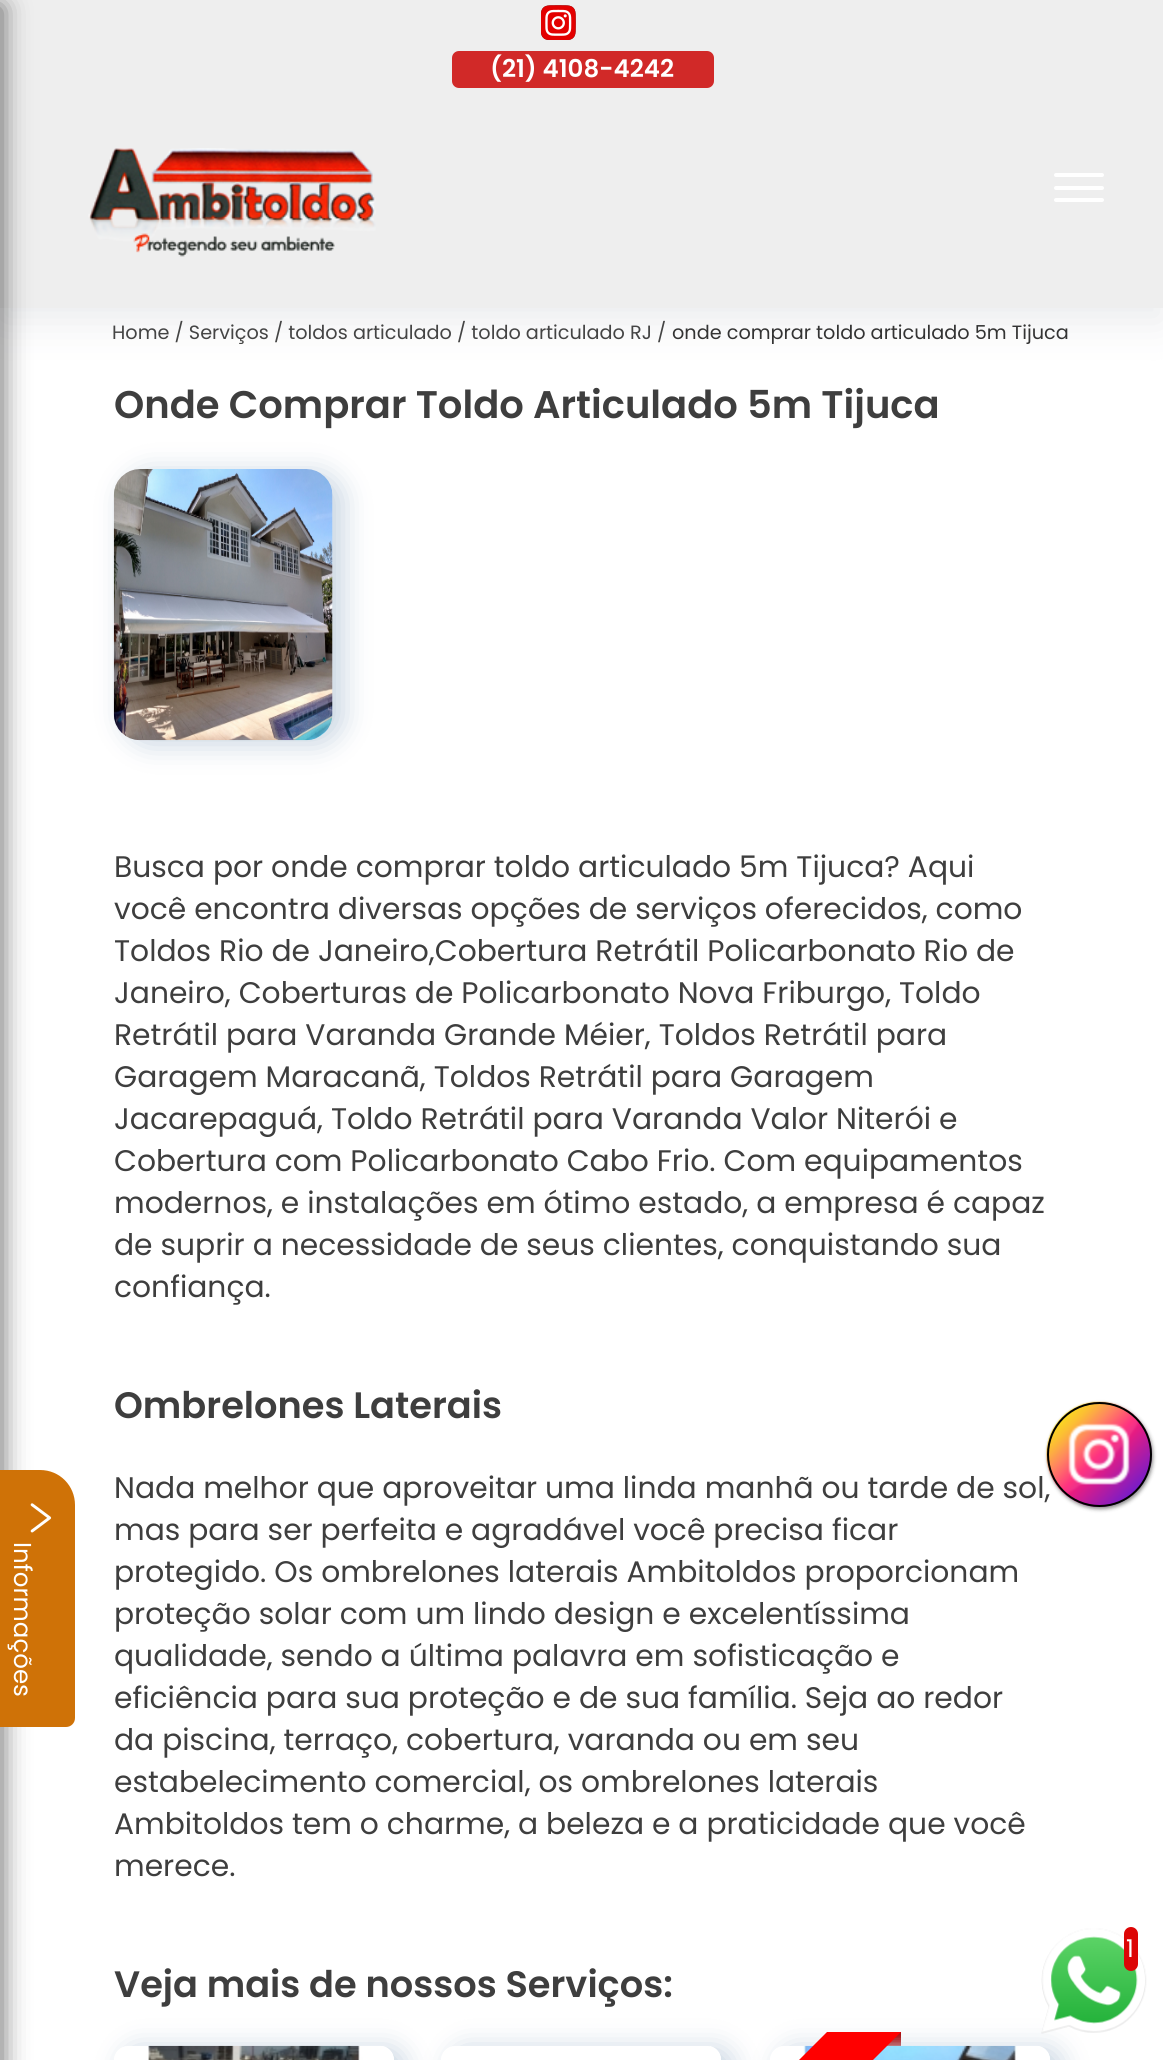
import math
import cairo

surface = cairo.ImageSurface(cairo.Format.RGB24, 1163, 2060)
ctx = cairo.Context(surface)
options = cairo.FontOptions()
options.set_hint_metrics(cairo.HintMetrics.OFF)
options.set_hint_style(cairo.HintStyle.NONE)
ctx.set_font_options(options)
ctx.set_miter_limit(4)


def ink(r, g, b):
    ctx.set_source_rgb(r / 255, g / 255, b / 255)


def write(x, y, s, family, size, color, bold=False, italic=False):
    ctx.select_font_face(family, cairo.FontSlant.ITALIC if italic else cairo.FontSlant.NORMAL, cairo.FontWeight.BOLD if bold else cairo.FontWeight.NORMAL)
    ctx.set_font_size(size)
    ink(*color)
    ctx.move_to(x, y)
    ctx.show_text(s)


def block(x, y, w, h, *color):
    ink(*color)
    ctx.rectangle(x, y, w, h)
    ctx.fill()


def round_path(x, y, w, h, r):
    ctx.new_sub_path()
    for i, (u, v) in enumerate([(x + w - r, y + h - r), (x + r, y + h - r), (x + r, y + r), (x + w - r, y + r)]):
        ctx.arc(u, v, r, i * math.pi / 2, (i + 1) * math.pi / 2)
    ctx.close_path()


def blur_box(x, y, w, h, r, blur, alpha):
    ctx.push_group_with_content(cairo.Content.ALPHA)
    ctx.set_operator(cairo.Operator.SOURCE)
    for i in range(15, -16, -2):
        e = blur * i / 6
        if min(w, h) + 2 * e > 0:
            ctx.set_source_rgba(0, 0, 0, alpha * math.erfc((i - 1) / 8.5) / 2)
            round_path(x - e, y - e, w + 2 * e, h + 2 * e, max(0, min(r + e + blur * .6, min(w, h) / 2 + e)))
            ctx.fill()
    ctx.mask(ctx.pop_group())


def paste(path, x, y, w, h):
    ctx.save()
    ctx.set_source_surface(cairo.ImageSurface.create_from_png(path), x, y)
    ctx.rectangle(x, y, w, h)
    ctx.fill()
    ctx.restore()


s1 = dict(family="Poppins SemiBold", size=24.5, color=(255, 255, 255))
s2 = dict(family="Poppins", size=19.25, color=(68, 68, 68))
s3 = dict(family="Poppins", size=19.25, color=(51, 51, 51))
s4 = dict(family="Poppins SemiBold", size=38.5, color=(62, 62, 62))
s5 = dict(family="Poppins", size=29.75, color=(62, 62, 62))
s6 = dict(family="Poppins SemiBold", size=36.75, color=(62, 62, 62))
s7 = dict(family="Poppins", size=24.5, color=(255, 255, 255))

ink(255, 255, 255)
ctx.paint()
ink(149, 157, 165)
blur_box(0, 14, 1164, 308, 0, 21, 0.2)
block(0, 0, 1163, 308, 238, 238, 238)
ink(0, 0, 0)
blur_box(-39, 7, 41, 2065, 0, 13, 0.6)
paste("pic1.png", 541, 5, 35, 35)
ink(209, 41, 40)
round_path(452, 51, 262, 37, 7)
ctx.fill()
write(490, 77, "(21) 4108-4242", **s1)
paste("pic2.png", 88, 148, 288, 109)
round_path(1054, 173, 50, 4, 2)
ctx.fill()
round_path(1054, 186, 50, 4, 2)
ctx.fill()
round_path(1054, 198, 50, 4, 2)
ctx.fill()
write(112, 339, "Home / Serviços / toldos articulado / toldo articulado RJ /", **s2)
write(672, 339, "onde comprar toldo articulado 5m Tijuca", **s3)
write(114, 418, "Onde Comprar Toldo Articulado 5m Tijuca", **s4)
ink(136, 165, 191)
blur_box(124, 473, 219, 271, 26, 14, 0.48)
paste("pic3.png", 113, 469, 220, 272)
write(114, 877, "Busca por onde comprar toldo articulado 5m Tijuca? Aqui", **s5)
write(114, 919, "você encontra diversas opções de serviços oferecidos, como", **s5)
write(114, 961, "Toldos Rio de Janeiro,Cobertura Retrátil Policarbonato Rio de", **s5)
write(114, 1003, "Janeiro, Coberturas de Policarbonato Nova Friburgo, Toldo", **s5)
write(114, 1045, "Retrátil para Varanda Grande Méier, Toldos Retrátil para", **s5)
write(114, 1087, "Garagem Maracanã, Toldos Retrátil para Garagem", **s5)
write(114, 1129, "Jacarepaguá, Toldo Retrátil para Varanda Valor Niterói e", **s5)
write(114, 1171, "Cobertura com Policarbonato Cabo Frio. Com equipamentos", **s5)
write(114, 1213, "modernos, e instalações em ótimo estado, a empresa é capaz", **s5)
write(114, 1255, "de suprir a necessidade de seus clientes, conquistando sua", **s5)
write(114, 1297, "confiança.", **s5)
write(114, 1418, "Ombrelones Laterais", **s6)
write(114, 1498, "Nada melhor que aproveitar uma linda manhã ou tarde de sol,", **s5)
write(114, 1540, "mas para ser perfeita e agradável você precisa ficar", **s5)
write(114, 1582, "protegido. Os ombrelones laterais Ambitoldos proporcionam", **s5)
write(114, 1624, "proteção solar com um lindo design e excelentíssima", **s5)
write(114, 1666, "qualidade, sendo a última palavra em sofisticação e", **s5)
write(114, 1708, "eficiência para sua proteção e de sua família. Seja ao redor", **s5)
write(114, 1750, "da piscina, terraço, cobertura, varanda ou em seu", **s5)
write(114, 1792, "estabelecimento comercial, os ombrelones laterais", **s5)
write(114, 1834, "Ambitoldos tem o charme, a beleza e a praticidade que você", **s5)
write(114, 1876, "merece.", **s5)
write(114, 1997, "Veja mais de nossos Serviços:", **s6)
ctx.save()
ctx.set_fill_rule(cairo.FillRule.EVEN_ODD)
ctx.new_path()
ctx.move_to(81, 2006)
ctx.line_to(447, 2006)
ctx.line_to(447, 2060)
ctx.line_to(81, 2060)
ctx.close_path()
ctx.move_to(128, 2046)
ctx.line_to(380, 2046)
ctx.curve_to(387.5, 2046, 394, 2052.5, 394, 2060)
ctx.line_to(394, 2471)
ctx.curve_to(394, 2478.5, 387.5, 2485, 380, 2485)
ctx.line_to(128, 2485)
ctx.curve_to(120.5, 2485, 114, 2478.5, 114, 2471)
ctx.line_to(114, 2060)
ctx.curve_to(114, 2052.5, 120.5, 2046, 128, 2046)
ctx.close_path()
ctx.clip()
ink(136, 165, 191)
blur_box(124, 2049, 280, 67, 14, 14, 0.48)
ctx.restore()
paste("pic4.png", 148, 2045, 246, 15)
ctx.save()
ctx.set_fill_rule(cairo.FillRule.EVEN_ODD)
ctx.new_path()
ctx.move_to(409, 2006)
ctx.line_to(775, 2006)
ctx.line_to(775, 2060)
ctx.line_to(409, 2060)
ctx.close_path()
ctx.move_to(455, 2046)
ctx.line_to(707, 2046)
ctx.curve_to(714.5, 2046, 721, 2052.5, 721, 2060)
ctx.line_to(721, 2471)
ctx.curve_to(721, 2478.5, 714.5, 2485, 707, 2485)
ctx.line_to(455, 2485)
ctx.curve_to(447.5, 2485, 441, 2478.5, 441, 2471)
ctx.line_to(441, 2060)
ctx.curve_to(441, 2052.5, 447.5, 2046, 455, 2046)
ctx.close_path()
ctx.clip()
ink(136, 165, 191)
blur_box(452, 2049, 280, 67, 14, 14, 0.48)
ctx.restore()
paste("pic5.png", 710, 2046, 11, 12)
block(887, 2032, 14, 14, 167, 0, 0)
ctx.save()
ctx.set_fill_rule(cairo.FillRule.EVEN_ODD)
ctx.new_path()
ctx.move_to(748, 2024)
ctx.line_to(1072, 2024)
ctx.line_to(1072, 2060)
ctx.line_to(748, 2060)
ctx.close_path()
ctx.move_to(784, 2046)
ctx.line_to(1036, 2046)
ctx.curve_to(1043.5, 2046, 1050, 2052.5, 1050, 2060)
ctx.line_to(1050, 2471)
ctx.curve_to(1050, 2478.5, 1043.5, 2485, 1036, 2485)
ctx.line_to(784, 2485)
ctx.curve_to(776.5, 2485, 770, 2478.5, 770, 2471)
ctx.line_to(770, 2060)
ctx.curve_to(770, 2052.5, 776.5, 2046, 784, 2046)
ctx.close_path()
ctx.clip()
ink(255, 255, 255)
blur_box(770, 2046, 280, 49, 14, 7, 0.8)
ctx.restore()
ctx.save()
ctx.set_fill_rule(cairo.FillRule.EVEN_ODD)
ctx.new_path()
ctx.move_to(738, 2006)
ctx.line_to(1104, 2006)
ctx.line_to(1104, 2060)
ctx.line_to(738, 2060)
ctx.close_path()
ctx.move_to(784, 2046)
ctx.line_to(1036, 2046)
ctx.curve_to(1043.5, 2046, 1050, 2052.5, 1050, 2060)
ctx.line_to(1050, 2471)
ctx.curve_to(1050, 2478.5, 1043.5, 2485, 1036, 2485)
ctx.line_to(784, 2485)
ctx.curve_to(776.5, 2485, 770, 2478.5, 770, 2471)
ctx.line_to(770, 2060)
ctx.curve_to(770, 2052.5, 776.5, 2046, 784, 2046)
ctx.close_path()
ctx.clip()
ink(136, 165, 191)
blur_box(781, 2049, 280, 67, 14, 14, 0.48)
ctx.restore()
paste("pic6.png", 803, 2045, 247, 15)
ctx.save()
ctx.rectangle(756, 2032, 158, 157)
ctx.clip()
ink(255, 0, 0)
ctx.new_path()
ctx.move_to(708, 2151)
ctx.line_to(875, 1984)
ctx.line_to(912, 2021)
ctx.line_to(745, 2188)
ctx.close_path()
ctx.fill()
ctx.restore()
ink(136, 136, 136)
blur_box(1048, 1404, 105, 105, 52.5, 2, 1)
paste("pic7.png", 1046, 1401, 106, 106)
ctx.arc(1099.5, 1454.5, 51.5, 0, 2 * math.pi)
ink(0, 0, 0)
ctx.stroke()
ink(207, 114, 7)
ctx.new_path()
ctx.move_to(75, 1505)
ctx.line_to(75, 1718)
ctx.curve_to(75, 1723, 71, 1727, 66, 1727)
ctx.line_to(-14, 1727)
ctx.line_to(-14, 1470)
ctx.line_to(40, 1470)
ctx.curve_to(60, 1470, 75, 1486, 75, 1505)
ctx.close_path()
ctx.fill()
paste("pic8.png", 30, 1503, 22, 30)
ctx.save()
ctx.translate(14, 1542)
ctx.rotate(90 * math.pi / 180)
write(0, 0, "Informações", **s7)
ctx.restore()
paste("pic9.png", 1041, 1928, 106, 106)
ink(221, 5, 5)
round_path(1124, 1927, 14, 44, 7)
ctx.fill()
write(1126, 1957, "1", **s7)
surface.write_to_png("screenshot.png")
